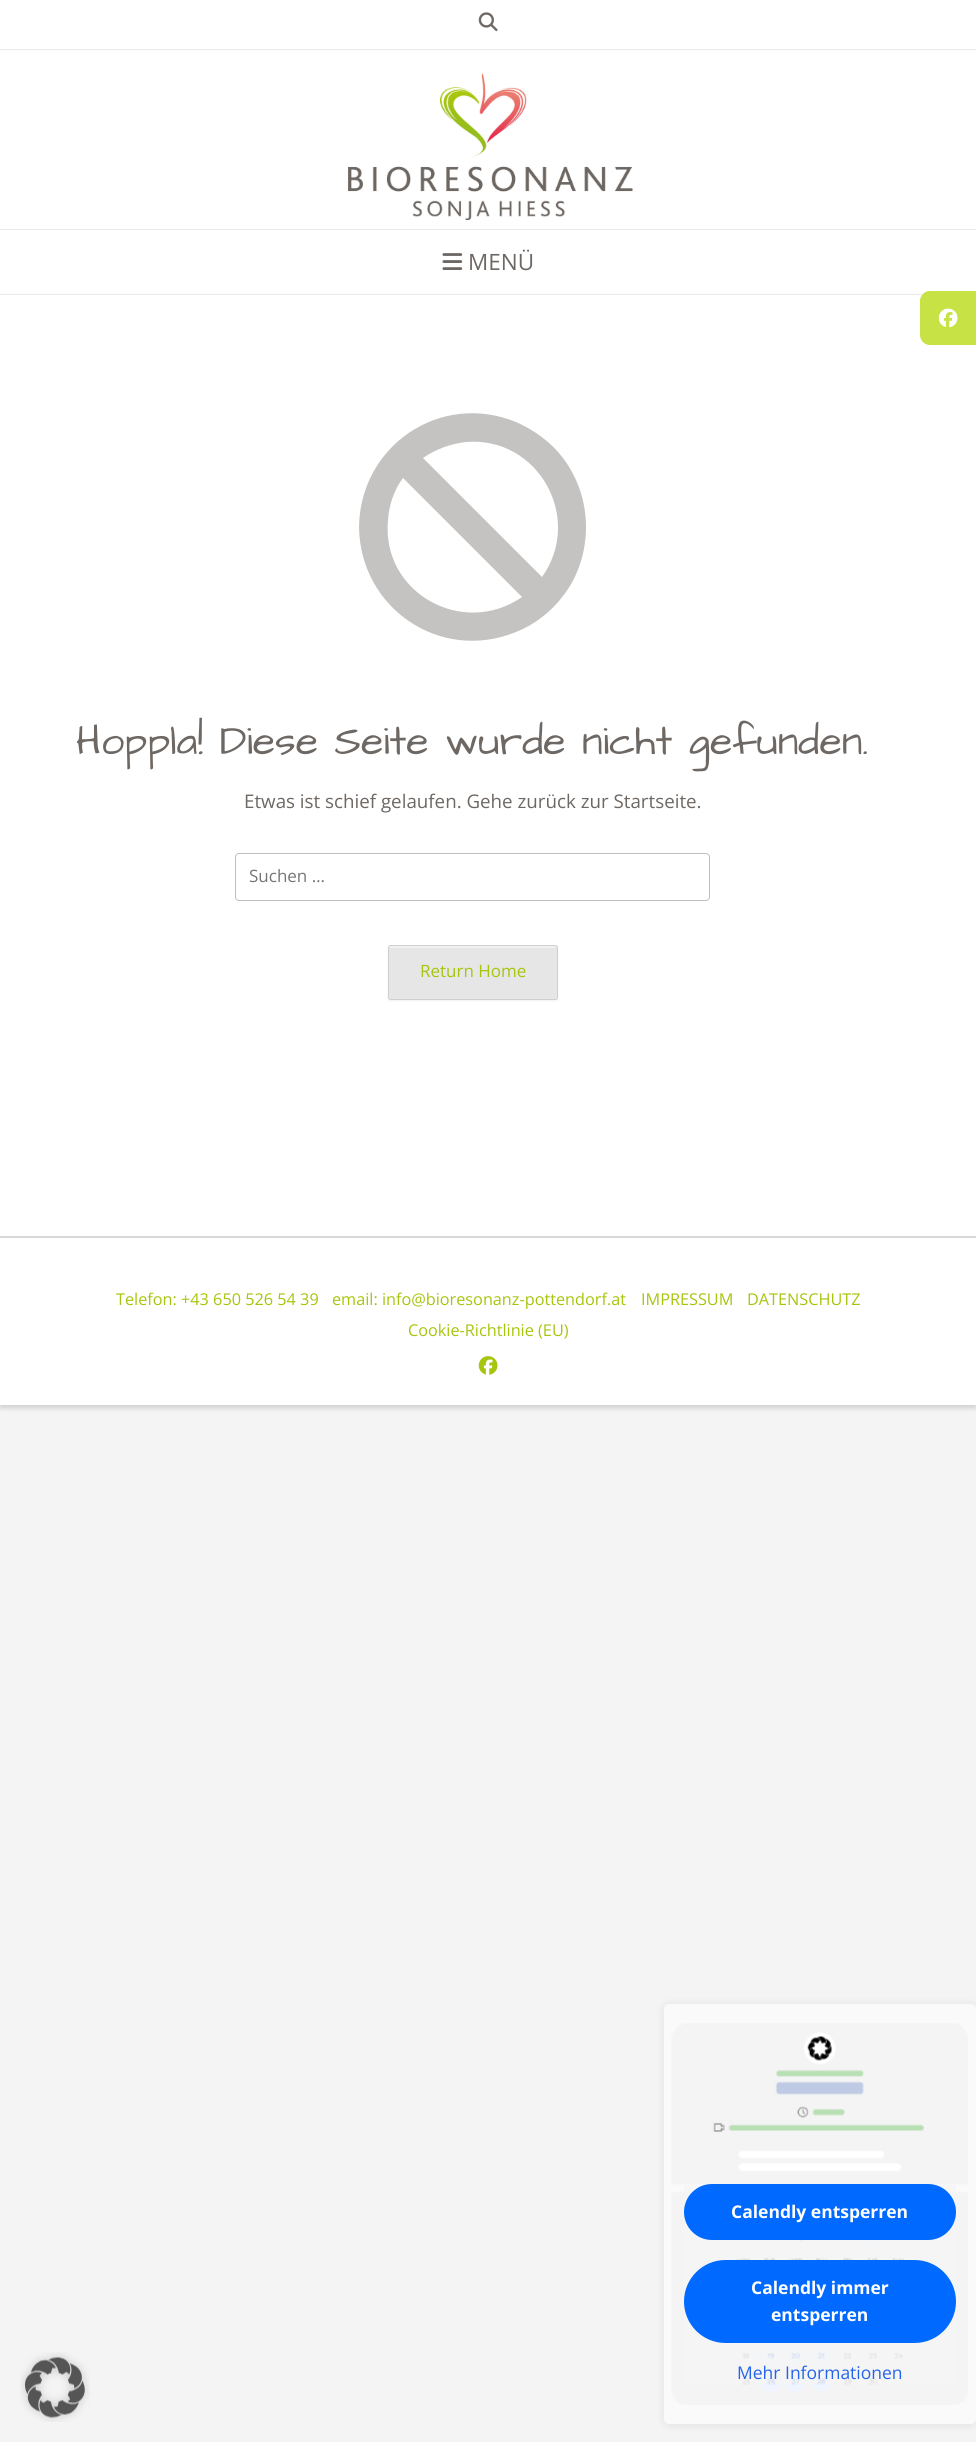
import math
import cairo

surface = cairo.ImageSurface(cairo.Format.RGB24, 976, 2442)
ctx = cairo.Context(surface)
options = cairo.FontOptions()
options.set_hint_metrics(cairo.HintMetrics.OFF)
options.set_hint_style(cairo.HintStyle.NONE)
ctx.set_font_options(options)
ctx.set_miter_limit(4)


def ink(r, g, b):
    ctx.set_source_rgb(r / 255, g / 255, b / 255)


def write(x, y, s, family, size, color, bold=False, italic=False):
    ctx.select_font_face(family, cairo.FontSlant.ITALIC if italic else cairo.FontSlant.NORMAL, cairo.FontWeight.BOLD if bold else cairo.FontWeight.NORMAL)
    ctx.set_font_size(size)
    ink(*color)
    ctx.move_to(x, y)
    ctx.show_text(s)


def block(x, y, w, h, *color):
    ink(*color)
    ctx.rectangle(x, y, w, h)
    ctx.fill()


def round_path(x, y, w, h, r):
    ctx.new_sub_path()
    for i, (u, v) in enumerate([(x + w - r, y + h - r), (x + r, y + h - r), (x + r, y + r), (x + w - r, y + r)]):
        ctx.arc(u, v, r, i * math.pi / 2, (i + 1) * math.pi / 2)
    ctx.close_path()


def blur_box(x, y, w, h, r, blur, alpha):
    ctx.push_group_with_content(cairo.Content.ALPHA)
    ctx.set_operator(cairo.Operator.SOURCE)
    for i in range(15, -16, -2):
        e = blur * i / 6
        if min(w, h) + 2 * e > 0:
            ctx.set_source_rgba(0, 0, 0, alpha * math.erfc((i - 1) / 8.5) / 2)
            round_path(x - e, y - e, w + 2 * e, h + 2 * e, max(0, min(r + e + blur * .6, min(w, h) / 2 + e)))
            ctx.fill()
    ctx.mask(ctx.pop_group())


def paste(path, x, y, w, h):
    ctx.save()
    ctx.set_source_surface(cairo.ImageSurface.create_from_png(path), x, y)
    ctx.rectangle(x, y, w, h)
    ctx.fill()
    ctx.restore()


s1 = dict(family="Open Sans", size=22.5, color=(110, 104, 100))
s2 = dict(family="Architects Daughter", size=41.25, color=(110, 104, 100))
s3 = dict(family="Open Sans", size=18.75, color=(110, 104, 100))
s4 = dict(family="Open Sans", size=17, color=(117, 117, 117))
s5 = dict(family="Open Sans", size=17, color=(166, 197, 14))
s6 = dict(family="Open Sans", size=16.25, color=(166, 197, 14))
s7 = dict(family="Open Sans", size=17.5, color=(255, 255, 255), bold=True)
s8 = dict(family="Open Sans", size=17.5, color=(37, 99, 235))

ink(244, 244, 244)
ctx.paint()
ink(0, 0, 0)
blur_box(0, 3, 976, 1405, 0, 2.5, 0.15)
block(0, 0, 976, 1405, 255, 255, 255)
block(0, 294, 923, 1, 235, 235, 235)
block(0, 49, 976, 1, 235, 235, 235)
paste("pic1.png", 478, 12, 20, 20)
paste("pic2.png", 348, 73, 285, 147)
block(0, 229, 976, 1, 235, 235, 235)
paste("pic3.png", 442, 253, 21, 17)
write(468, 270, "MENÜ", **s1)
ink(197, 195, 193)
ctx.new_path()
ctx.move_to(522, 597)
ctx.line_to(403, 478)
ctx.curve_to(394, 490, 389, 505, 388, 520)
ctx.curve_to(381, 593, 463, 638, 522, 597)
ctx.close_path()
ctx.move_to(542, 577)
ctx.curve_to(584, 518, 538, 436, 466, 442)
ctx.curve_to(450, 444, 436, 449, 423, 458)
ctx.close_path()
ctx.move_to(359, 527)
ctx.curve_to(360, 446, 440, 391, 516, 422)
ctx.curve_to(534, 430, 551, 442, 563, 458)
ctx.curve_to(578, 478, 586, 502, 586, 527)
ctx.curve_to(586, 552, 578, 577, 563, 596)
ctx.curve_to(551, 612, 534, 625, 516, 632)
ctx.curve_to(440, 663, 360, 608, 359, 527)
ctx.close_path()
ctx.fill()
write(76, 754, "Hoppla! Diese Seite wurde nicht gefunden.", **s2)
write(244, 808, "Etwas ist schief gelaufen. Gehe zurück zur Startseite.", **s3)
round_path(235.5, 853.5, 474, 47, 3.5)
ink(191, 191, 191)
ctx.set_line_width(1)
ctx.stroke()
write(249, 882, "Suchen …", **s4)
ctx.save()
ctx.set_fill_rule(cairo.FillRule.EVEN_ODD)
ctx.new_path()
ctx.move_to(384, 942)
ctx.line_to(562, 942)
ctx.line_to(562, 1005)
ctx.line_to(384, 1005)
ctx.close_path()
ctx.move_to(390.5, 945)
ctx.line_to(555.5, 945)
ctx.curve_to(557, 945, 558, 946, 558, 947.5)
ctx.line_to(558, 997.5)
ctx.curve_to(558, 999, 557, 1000, 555.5, 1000)
ctx.line_to(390.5, 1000)
ctx.curve_to(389, 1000, 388, 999, 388, 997.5)
ctx.line_to(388, 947.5)
ctx.curve_to(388, 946, 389, 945, 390.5, 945)
ctx.close_path()
ctx.clip()
ink(0, 0, 0)
blur_box(388, 946, 170, 55, 2.5, 1, 0.06)
ctx.restore()
ctx.set_source_rgba(0, 0, 0, 0.1)
round_path(388, 945, 170, 55, 2.5)
ctx.fill()
ink(240, 240, 240)
ctx.new_path()
ctx.move_to(390, 948)
ctx.line_to(555, 948)
ctx.curve_to(556, 948, 556, 948, 556, 949)
ctx.curve_to(556, 948, 556, 946, 555, 946)
ctx.line_to(390, 946)
ctx.curve_to(389, 946, 389, 948, 389, 949)
ctx.curve_to(389, 948, 389, 948, 390, 948)
ctx.close_path()
ctx.fill()
round_path(388.5, 945.5, 169, 54, 2)
ctx.set_source_rgba(0, 0, 0, 0.1)
ctx.stroke()
write(420, 977, "Return Home", **s5)
block(0, 1236, 976, 2, 216, 216, 216)
write(116, 1305, "Telefon: +43 650 526 54 39", **s6)
write(332, 1305, "email: info@bioresonanz-pottendorf.at", **s6)
write(641, 1305, "IMPRESSUM", **s6)
write(747, 1305, "DATENSCHUTZ", **s6)
write(408, 1336, "Cookie-Richtlinie (EU)", **s6)
paste("pic4.png", 478, 1356, 20, 19)
ink(199, 226, 68)
ctx.new_path()
ctx.move_to(930, 291)
ctx.line_to(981, 291)
ctx.line_to(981, 345)
ctx.line_to(930, 345)
ctx.curve_to(924.5, 345, 920, 340.5, 920, 335)
ctx.line_to(920, 301)
ctx.curve_to(920, 295.5, 924.5, 291, 930, 291)
ctx.close_path()
ctx.fill()
paste("pic5.png", 938, 308, 20, 20)
ink(0, 0, 0)
blur_box(664, 2005, 312, 420, 5, 5, 0.08)
ink(250, 250, 250)
round_path(664, 2004, 312, 420, 5)
ctx.fill()
paste("pic6.png", 671, 2023, 297, 382)
ctx.set_source_rgba(0.961, 0.961, 0.961, 0.8)
ctx.rectangle(684, 2185, 272, 199)
ctx.fill()
ink(0, 105, 255)
round_path(684, 2184, 272, 56, 28)
ctx.fill()
write(731, 2218, "Calendly entsperren", **s7)
ink(0, 105, 255)
round_path(684, 2260, 272, 83, 41.5)
ctx.fill()
write(751, 2294, "Calendly immer", **s7)
write(771, 2321, "entsperren", **s7)
write(737, 2379, "Mehr Informationen", **s8)
paste("pic7.png", 20, 2352, 70, 70)
surface.write_to_png("screenshot.png")
